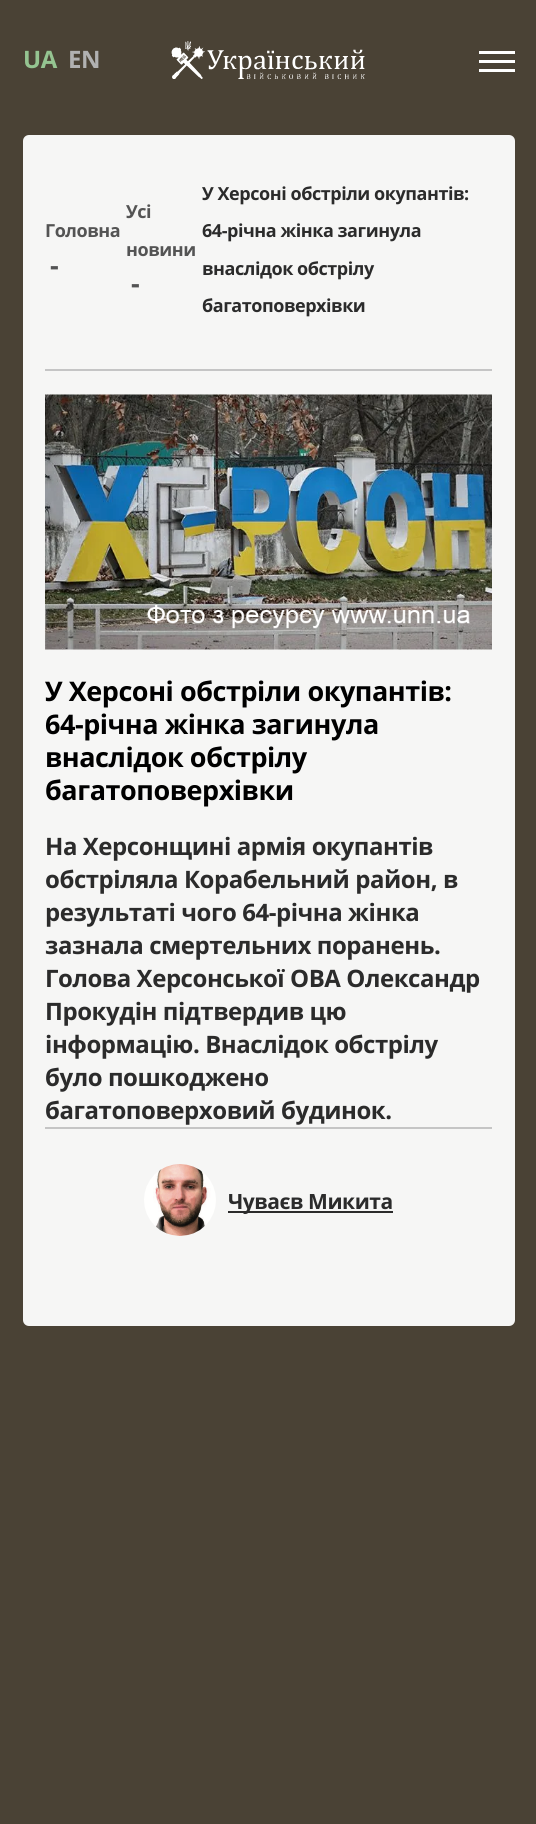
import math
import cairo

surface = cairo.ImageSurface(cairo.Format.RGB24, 536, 1824)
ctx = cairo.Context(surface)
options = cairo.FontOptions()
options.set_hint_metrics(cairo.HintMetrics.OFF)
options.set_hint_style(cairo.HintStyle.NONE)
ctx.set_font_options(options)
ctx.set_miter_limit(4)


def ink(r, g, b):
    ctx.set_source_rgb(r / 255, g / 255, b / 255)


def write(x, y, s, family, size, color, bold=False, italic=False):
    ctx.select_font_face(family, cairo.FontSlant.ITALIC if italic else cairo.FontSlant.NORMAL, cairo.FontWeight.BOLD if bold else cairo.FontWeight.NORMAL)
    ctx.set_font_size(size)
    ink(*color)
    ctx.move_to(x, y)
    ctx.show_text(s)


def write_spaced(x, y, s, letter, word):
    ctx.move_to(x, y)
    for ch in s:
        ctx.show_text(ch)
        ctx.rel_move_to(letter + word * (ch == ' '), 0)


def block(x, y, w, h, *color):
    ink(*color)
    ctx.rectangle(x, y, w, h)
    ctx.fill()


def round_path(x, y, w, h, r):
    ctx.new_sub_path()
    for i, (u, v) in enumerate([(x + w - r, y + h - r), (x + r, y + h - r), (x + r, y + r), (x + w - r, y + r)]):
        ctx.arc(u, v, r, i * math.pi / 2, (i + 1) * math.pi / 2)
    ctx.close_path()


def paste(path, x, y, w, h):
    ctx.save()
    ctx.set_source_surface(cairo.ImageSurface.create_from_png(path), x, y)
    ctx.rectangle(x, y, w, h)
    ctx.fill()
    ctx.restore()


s1 = dict(family="Open Sans", size=27, color=(84, 84, 84), bold=True)

ink(74, 66, 53)
ctx.paint()
ctx.select_font_face("Open Sans", cairo.FontSlant.NORMAL, cairo.FontWeight.BOLD)
ctx.set_font_size(24)
ink(149, 196, 145)
write_spaced(23, 68, "UA", -0.45, 0)
ink(177, 177, 177)
write_spaced(68, 68, "EN", -0.45, 0)
paste("pic1.png", 171, 41, 194, 39)
block(479, 51, 36, 3, 255, 255, 255)
block(479, 60, 36, 3, 255, 255, 255)
block(479, 69, 36, 3, 255, 255, 255)
ink(246, 246, 245)
round_path(23, 135, 492, 1191, 6)
ctx.fill()
block(45, 369, 447, 2, 197, 197, 197)
ctx.set_font_size(18)
ink(84, 84, 84)
write_spaced(45, 237, "Головна", -0.45, 0)
write(50, 275, "-", **s1)
ctx.set_font_size(18)
write_spaced(126, 218, "Усі", -0.45, 0)
write_spaced(126, 256, "новини", -0.45, 0)
write(131, 293, "-", **s1)
ctx.set_font_size(18)
ink(43, 43, 43)
write_spaced(202, 200, "У Херсоні обстріли окупантів:", -0.45, 0)
write_spaced(202, 237, "64-річна жінка загинула", -0.45, 0)
write_spaced(202, 275, "внаслідок обстрілу", -0.45, 0)
write_spaced(202, 312, "багатоповерхівки", -0.45, 0)
paste("pic2.png", 45, 394, 447, 256)
ctx.set_font_size(27)
ink(0, 0, 0)
write_spaced(45, 701, "У Херсоні обстріли окупантів:", -0.45, 0)
write_spaced(45, 734, "64-річна жінка загинула", -0.45, 0)
write_spaced(45, 767, "внаслідок обстрілу", -0.45, 0)
write_spaced(45, 800, "багатоповерхівки", -0.45, 0)
ctx.set_font_size(24)
ink(43, 43, 43)
write_spaced(45, 855, "На Херсонщині армія окупантів", -0.45, 0)
write_spaced(45, 888, "обстріляла Корабельний район, в", -0.45, 0)
write_spaced(45, 921, "результаті чого 64-річна жінка", -0.45, 0)
write_spaced(45, 954, "зазнала смертельних поранень.", -0.45, 0)
write_spaced(45, 987, "Голова Херсонської ОВА Олександр", -0.45, 0)
write_spaced(45, 1020, "Прокудін підтвердив цю", -0.45, 0)
write_spaced(45, 1053, "інформацію. Внаслідок обстрілу", -0.45, 0)
write_spaced(45, 1086, "було пошкоджено", -0.45, 0)
write_spaced(45, 1119, "багатоповерховий будинок.", -0.45, 0)
block(45, 1127, 447, 2, 197, 197, 197)
paste("pic3.png", 144, 1164, 72, 72)
block(228, 1211, 165, 2, 43, 43, 43)
ctx.set_font_size(21)
write_spaced(228, 1209, "Чуваєв Микита", -0.45, 0)
surface.write_to_png("screenshot.png")
